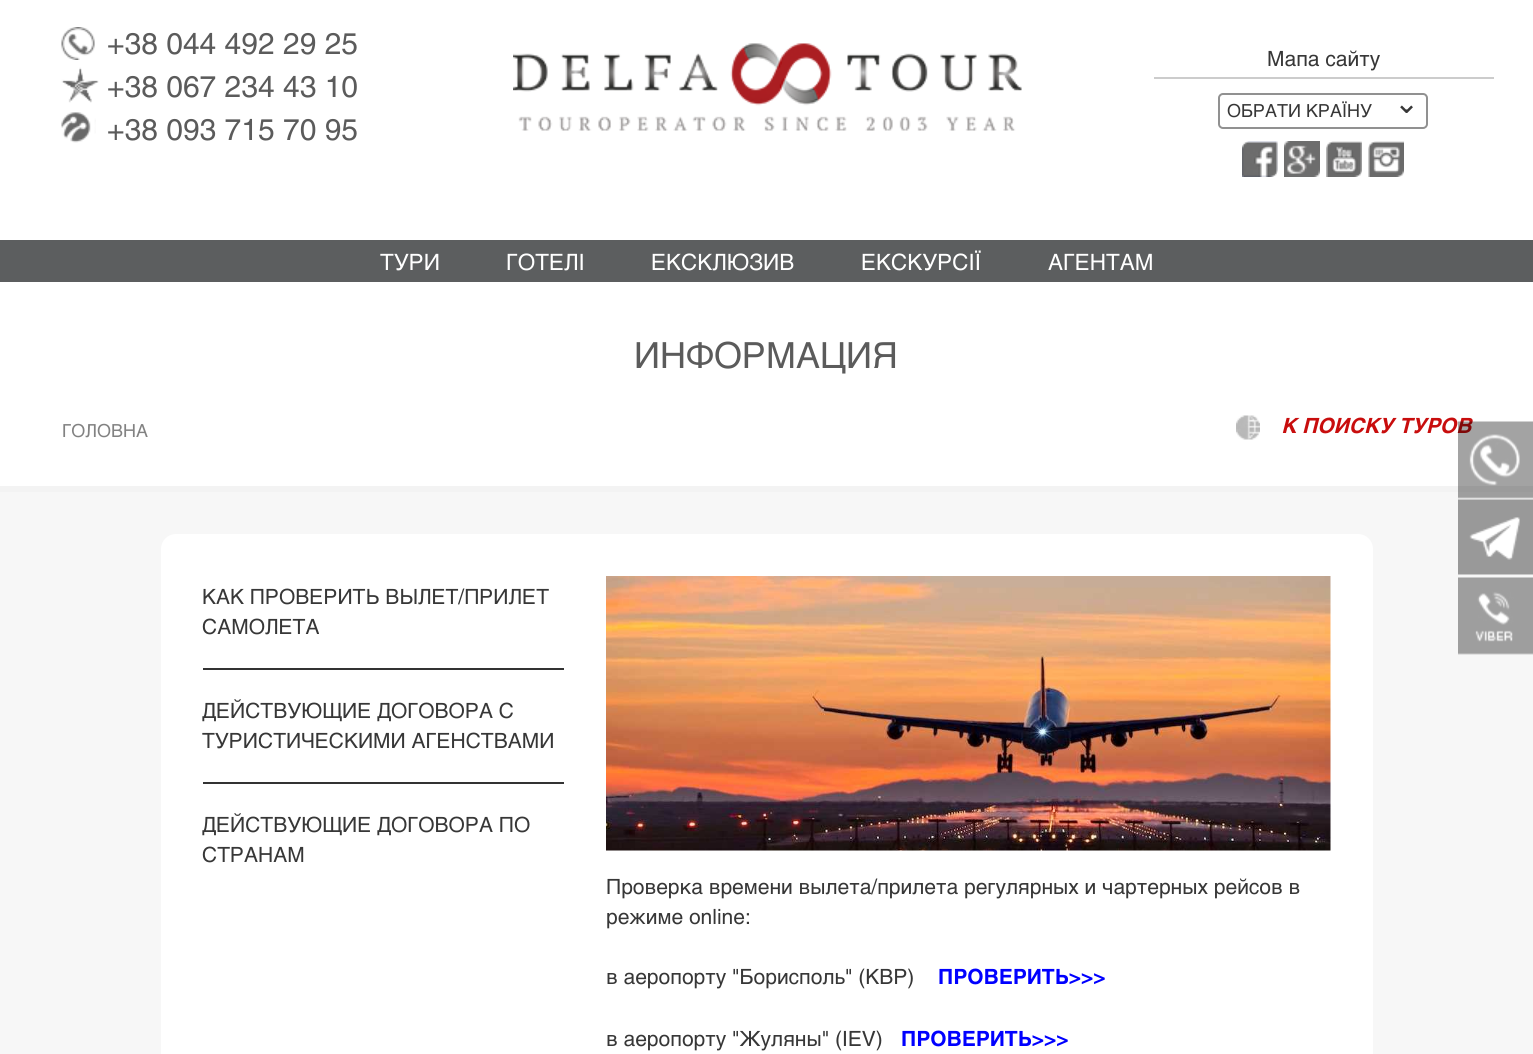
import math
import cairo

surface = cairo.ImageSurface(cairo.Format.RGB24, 1533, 1054)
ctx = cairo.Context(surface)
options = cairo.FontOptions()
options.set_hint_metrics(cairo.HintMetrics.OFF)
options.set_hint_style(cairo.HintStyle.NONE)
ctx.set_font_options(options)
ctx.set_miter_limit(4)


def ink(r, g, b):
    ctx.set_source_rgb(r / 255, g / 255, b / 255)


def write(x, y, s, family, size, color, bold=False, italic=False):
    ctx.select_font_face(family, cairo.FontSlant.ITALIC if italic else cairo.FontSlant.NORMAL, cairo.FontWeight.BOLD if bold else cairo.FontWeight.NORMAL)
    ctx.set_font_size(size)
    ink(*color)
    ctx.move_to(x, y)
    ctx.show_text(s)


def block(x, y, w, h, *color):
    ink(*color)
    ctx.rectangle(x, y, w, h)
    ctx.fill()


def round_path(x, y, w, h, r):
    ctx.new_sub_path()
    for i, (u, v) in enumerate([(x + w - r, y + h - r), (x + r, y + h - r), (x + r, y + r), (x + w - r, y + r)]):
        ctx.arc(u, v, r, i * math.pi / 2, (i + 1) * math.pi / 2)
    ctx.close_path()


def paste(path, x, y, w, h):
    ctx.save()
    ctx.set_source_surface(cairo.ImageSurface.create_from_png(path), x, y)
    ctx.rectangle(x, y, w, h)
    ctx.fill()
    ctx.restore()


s1 = dict(family="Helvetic", size=30, color=(91, 91, 91))
s2 = dict(family="Helvetic", size=21, color=(55, 55, 55))
s3 = dict(family="Helvetic", size=18, color=(55, 55, 55))
s4 = dict(family="DejaVu Sans", size=30, color=(55, 55, 55))
s5 = dict(family="Helvetic", size=22.5, color=(255, 255, 255))
s6 = dict(family="Helvetic", size=36, color=(91, 91, 91))
s7 = dict(family="Helvetic", size=18, color=(130, 130, 130))
s8 = dict(family="Helvetic", size=21, color=(200, 13, 13), bold=True, italic=True)
s9 = dict(family="Helvetic", size=21, color=(0, 0, 255), bold=True)

ink(255, 255, 255)
ctx.paint()
paste("pic1.png", 61, 27, 34, 33)
write(107, 54, "+38 044 492 29 25", **s1)
paste("pic2.png", 61, 67, 38, 36)
write(107, 97, "+38 067 234 43 10", **s1)
paste("pic3.png", 61, 112, 35, 31)
write(107, 140, "+38 093 715 70 95", **s1)
paste("pic4.png", 513, 43, 509, 88)
write(1267, 66, "Мапа сайту", **s2)
block(1154, 77, 340, 2, 204, 204, 204)
round_path(1219, 94, 208, 34, 4)
ink(145, 145, 145)
ctx.stroke()
write(1227, 117, "ОБРАТИ КРАЇНУ", **s3)
write(1394, 113, "⌄", **s4)
paste("pic5.png", 1242, 141, 36, 36)
paste("pic6.png", 1284, 141, 36, 36)
paste("pic7.png", 1326, 141, 36, 36)
paste("pic8.png", 1368, 141, 36, 36)
block(0, 240, 1533, 42, 92, 94, 95)
write(380, 270, "ТУРИ", **s5)
write(506, 270, "ГОТЕЛІ", **s5)
write(651, 270, "ЕКСКЛЮЗИВ", **s5)
write(861, 270, "ЕКСКУРСІЇ", **s5)
write(1048, 270, "АГЕНТАМ", **s5)
write(634, 368, "ИНФОРМАЦИЯ", **s6)
write(62, 437, "ГОЛОВНА", **s7)
paste("pic9.png", 1236, 415, 24, 25)
write(1281, 433, "К ПОИСКУ ТУРОВ", **s8)
block(0, 486, 1533, 6, 243, 243, 243)
block(0, 492, 1533, 562, 247, 247, 247)
ink(255, 255, 255)
round_path(161, 534, 1212, 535, 15)
ctx.fill()
block(203, 668, 361, 2, 51, 51, 51)
write(202, 604, "КАК ПРОВЕРИТЬ ВЫЛЕТ/ПРИЛЕТ", **s2)
write(202, 634, "САМОЛЕТА", **s2)
block(203, 782, 361, 2, 51, 51, 51)
write(202, 718, "ДЕЙСТВУЮЩИЕ ДОГОВОРА С", **s2)
write(202, 748, "ТУРИСТИЧЕСКИМИ АГЕНСТВАМИ", **s2)
write(202, 832, "ДЕЙСТВУЮЩИЕ ДОГОВОРА ПО", **s2)
write(202, 862, "СТРАНАМ", **s2)
paste("pic10.png", 606, 576, 725, 275)
write(606, 894, "Проверка времени вылета/прилета регулярных и чартерных рейсов в", **s2)
write(606, 924, "режиме online:", **s2)
write(606, 984, "в аеропорту \"Борисполь\" (KBP)", **s2)
write(938, 984, "ПРОВЕРИТЬ>>>", **s9)
write(606, 1046, "в аеропорту \"Жуляны\" (IEV)", **s2)
write(901, 1046, "ПРОВЕРИТЬ>>>", **s9)
paste("pic11.png", 1458, 421, 75, 78)
paste("pic12.png", 1458, 499, 75, 76)
paste("pic13.png", 1458, 577, 75, 78)
surface.write_to_png("screenshot.png")
